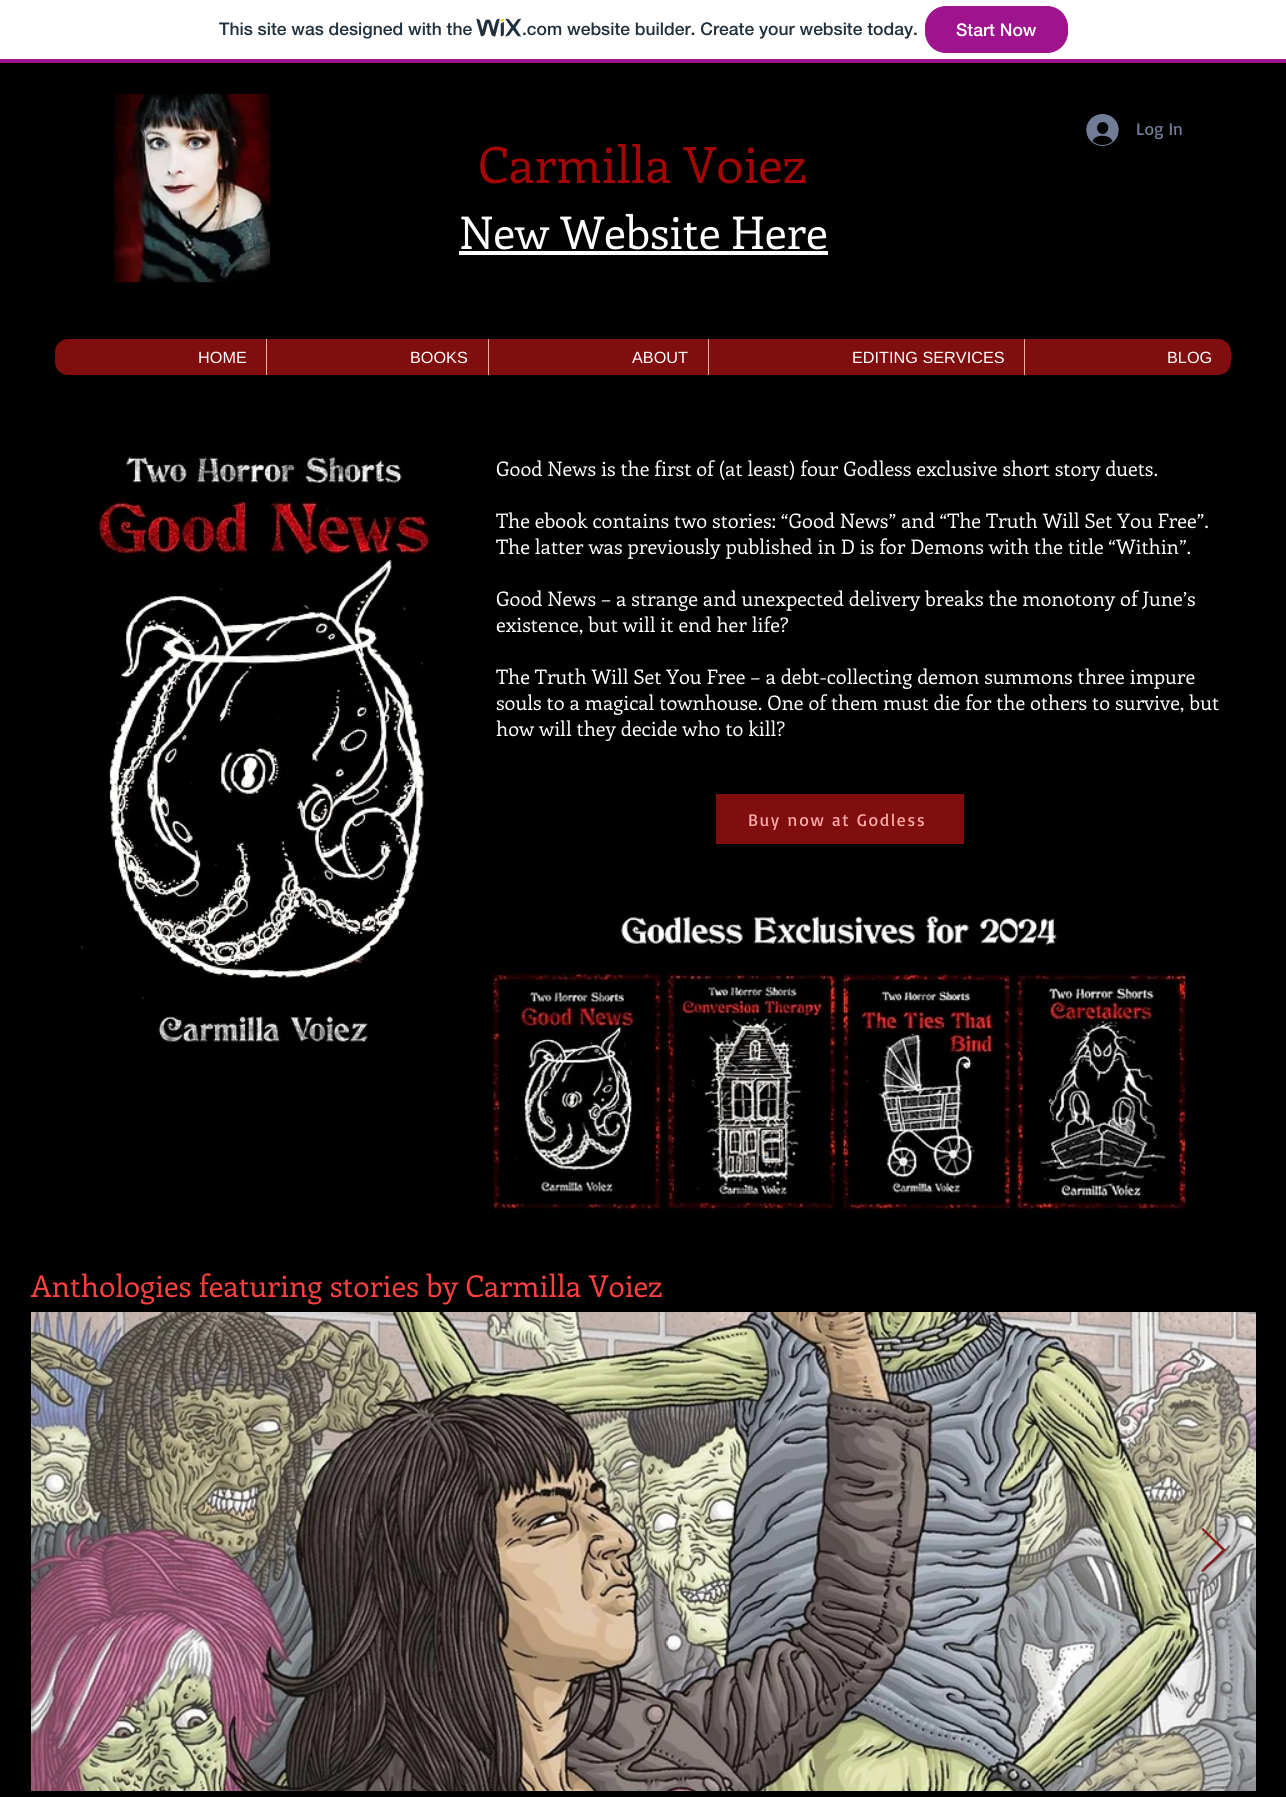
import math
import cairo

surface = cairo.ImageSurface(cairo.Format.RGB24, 1286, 1797)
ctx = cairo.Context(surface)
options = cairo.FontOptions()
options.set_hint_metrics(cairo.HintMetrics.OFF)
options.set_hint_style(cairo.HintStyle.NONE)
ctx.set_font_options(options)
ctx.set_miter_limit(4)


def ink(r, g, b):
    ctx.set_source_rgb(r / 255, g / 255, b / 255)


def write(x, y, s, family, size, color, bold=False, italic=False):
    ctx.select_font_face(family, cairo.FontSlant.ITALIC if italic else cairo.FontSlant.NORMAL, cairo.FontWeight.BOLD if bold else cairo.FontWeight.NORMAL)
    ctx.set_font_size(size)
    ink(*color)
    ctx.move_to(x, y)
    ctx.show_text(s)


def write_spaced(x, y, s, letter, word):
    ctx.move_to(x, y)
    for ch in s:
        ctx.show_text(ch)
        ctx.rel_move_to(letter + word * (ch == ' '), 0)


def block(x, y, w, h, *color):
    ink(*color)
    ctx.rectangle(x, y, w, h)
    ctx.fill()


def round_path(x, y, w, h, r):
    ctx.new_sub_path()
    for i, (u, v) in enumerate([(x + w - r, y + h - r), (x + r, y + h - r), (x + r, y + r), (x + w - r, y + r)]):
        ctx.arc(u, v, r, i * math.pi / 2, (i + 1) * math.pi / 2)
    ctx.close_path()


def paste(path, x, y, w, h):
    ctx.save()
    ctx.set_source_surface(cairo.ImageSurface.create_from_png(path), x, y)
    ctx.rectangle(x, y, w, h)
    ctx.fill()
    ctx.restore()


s1 = dict(family="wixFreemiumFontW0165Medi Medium", size=17.5, color=(32, 48, 60))
s2 = dict(family="wixFreemiumFontW0165Medi Medium", size=17.5, color=(255, 255, 255))
s3 = dict(family="Basic", size=17.5, color=(113, 125, 151))
s4 = dict(family="Enriqueta", size=50, color=(164, 6, 6))
s5 = dict(family="Enriqueta", size=45, color=(255, 255, 255))
s6 = dict(family="Liberation Sans", size=16.25, color=(255, 255, 255))
s7 = dict(family="Enriqueta", size=20, color=(255, 255, 255))
s8 = dict(family="Enriqueta", size=30, color=(255, 64, 64))

ink(255, 255, 255)
ctx.paint()
block(0, 59, 1286, 4, 160, 19, 142)
write(219, 35, "This site was designed with the", **s1)
paste("pic1.png", 476, 18, 45, 19)
write(522, 35, ".com website builder. Create your website today.", **s1)
ink(160, 19, 142)
round_path(925.5, 6.5, 142, 46, 20.5)
ctx.fill_preserve()
ctx.set_line_width(1)
ctx.stroke()
write(956, 36, "Start Now", **s2)
block(0, 63, 1286, 1734, 0, 0, 0)
paste("pic2.png", 114, 93, 156, 190)
paste("pic3.png", 1086, 114, 33, 32)
write(1136, 135, "Log In", **s3)
write(478, 183, "Carmilla Voiez", **s4)
write(459, 249, "New Website Here", **s5)
block(459, 251, 369, 4, 255, 255, 255)
ink(129, 14, 14)
round_path(55, 339, 1176, 36, 13)
ctx.fill()
write(198, 363, "HOME", **s6)
block(266, 339, 1, 36, 252, 171, 171)
write(410, 363, "BOOKS", **s6)
block(488, 339, 1, 36, 252, 171, 171)
write(632, 363, "ABOUT", **s6)
block(708, 339, 1, 36, 252, 171, 171)
write(852, 363, "EDITING SERVICES", **s6)
block(1024, 339, 1, 36, 252, 171, 171)
write(1167, 363, "BLOG", **s6)
paste("pic4.png", 81, 457, 351, 586)
write(496, 476, "Good News is the first of (at least) four Godless exclusive short story duets.", **s7)
write(496, 528, "The ebook contains two stories: “Good News” and “The Truth Will Set You Free”.", **s7)
write(496, 554, "The latter was previously published in D is for Demons with the title “Within”.", **s7)
write(496, 606, "Good News – a strange and unexpected delivery breaks the monotony of June’s", **s7)
write(496, 632, "existence, but will it end her life?", **s7)
write(496, 684, "The Truth Will Set You Free – a debt-collecting demon summons three impure", **s7)
write(496, 710, "souls to a magical townhouse. One of them must die for the others to survive, but", **s7)
write(496, 736, "how will they decide who to kill?", **s7)
block(716, 794, 248, 50, 129, 14, 14)
ctx.select_font_face("Basic")
ctx.set_font_size(17.5)
ink(252, 171, 171)
write_spaced(748, 826, "Buy now at Godless", 1.75, 0)
paste("pic5.png", 485, 912, 702, 301)
write(31, 1297, "Anthologies featuring stories by Carmilla Voiez", **s8)
paste("pic6.png", 31, 1312, 1225, 479)
ctx.set_source_rgba(0.506, 0.055, 0.055, 0.9)
ctx.new_path()
ctx.move_to(1201, 1529)
ctx.line_to(1203, 1528)
ctx.line_to(1226, 1550)
ctx.line_to(1203, 1572)
ctx.line_to(1201, 1571)
ctx.line_to(1222, 1550)
ctx.close_path()
ctx.fill()
surface.write_to_png("screenshot.png")
